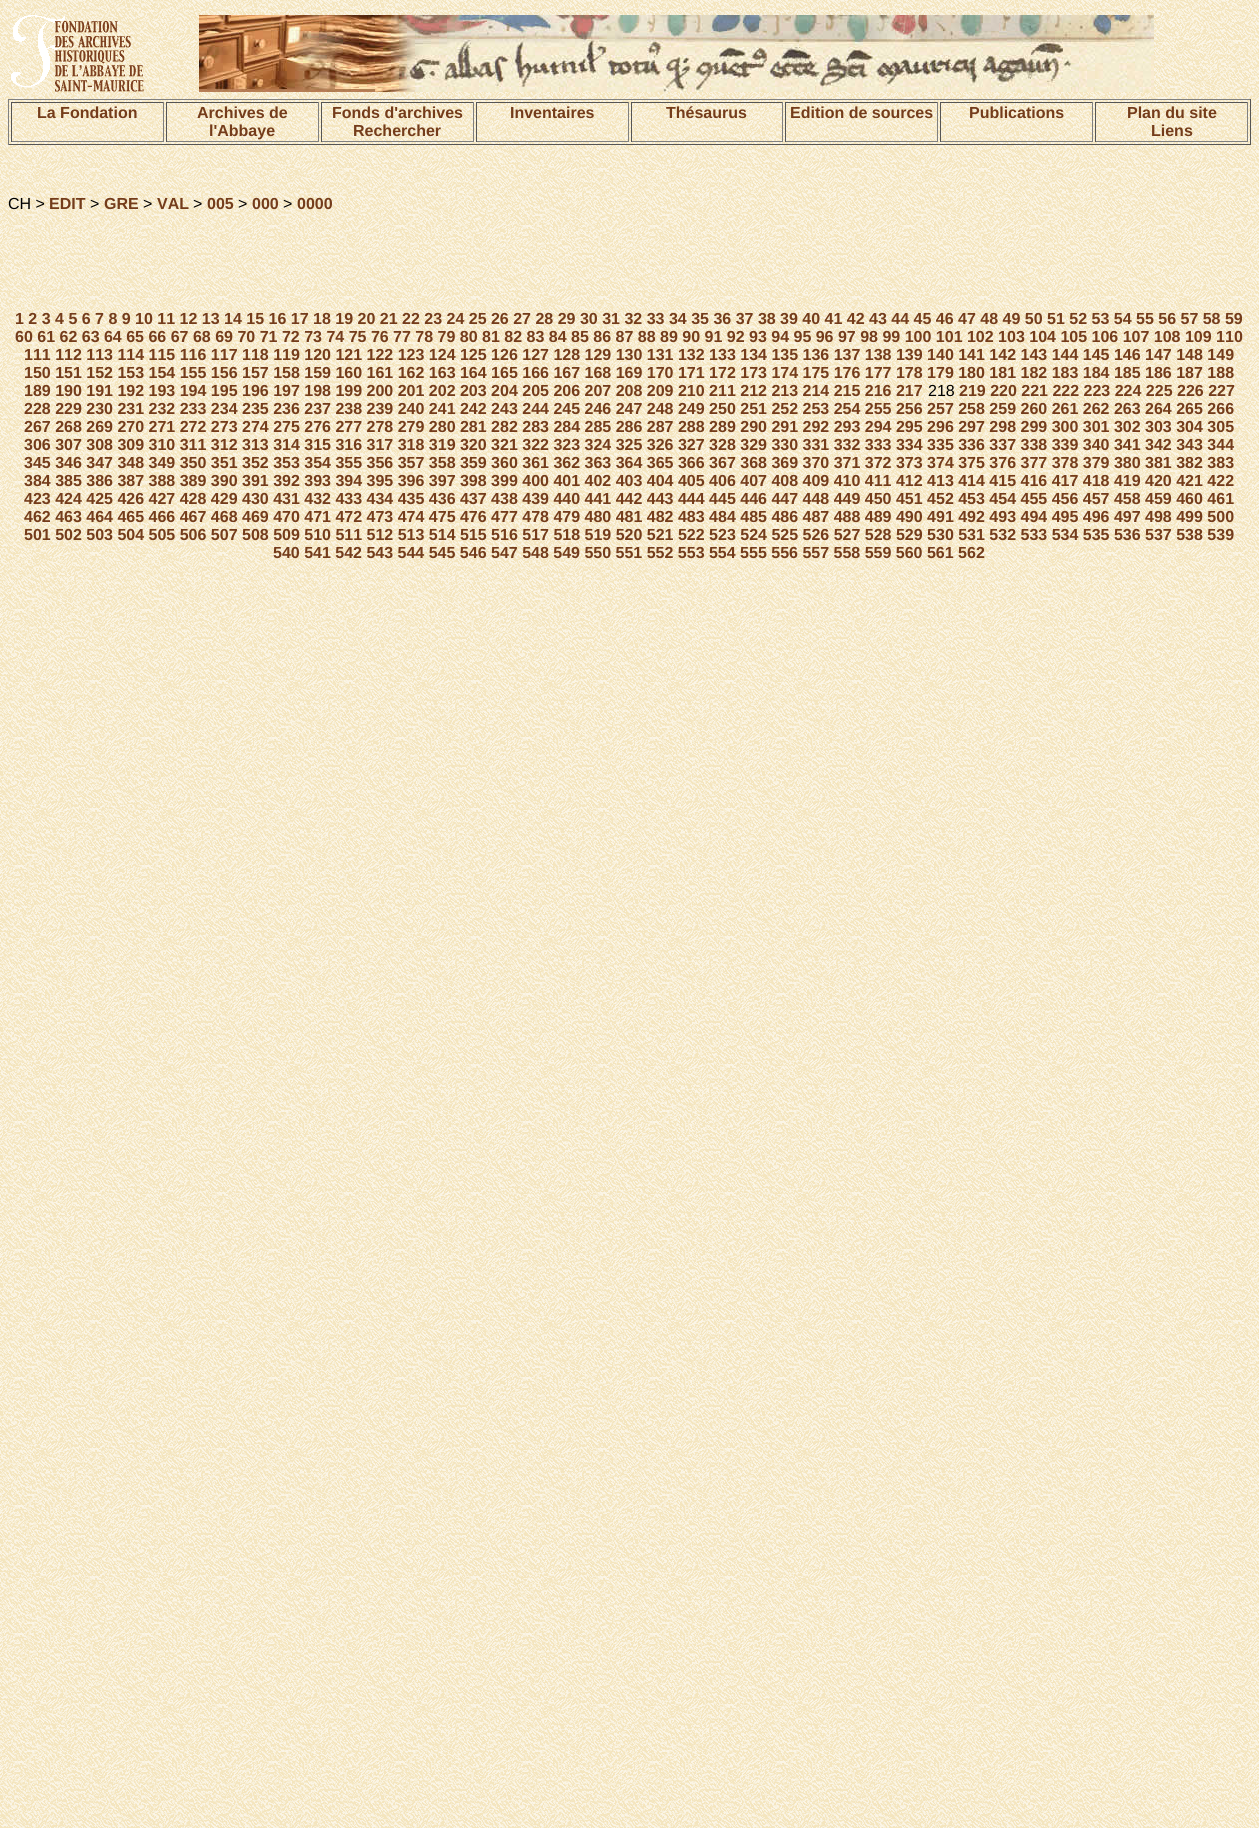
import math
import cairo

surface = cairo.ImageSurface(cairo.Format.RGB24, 1259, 1828)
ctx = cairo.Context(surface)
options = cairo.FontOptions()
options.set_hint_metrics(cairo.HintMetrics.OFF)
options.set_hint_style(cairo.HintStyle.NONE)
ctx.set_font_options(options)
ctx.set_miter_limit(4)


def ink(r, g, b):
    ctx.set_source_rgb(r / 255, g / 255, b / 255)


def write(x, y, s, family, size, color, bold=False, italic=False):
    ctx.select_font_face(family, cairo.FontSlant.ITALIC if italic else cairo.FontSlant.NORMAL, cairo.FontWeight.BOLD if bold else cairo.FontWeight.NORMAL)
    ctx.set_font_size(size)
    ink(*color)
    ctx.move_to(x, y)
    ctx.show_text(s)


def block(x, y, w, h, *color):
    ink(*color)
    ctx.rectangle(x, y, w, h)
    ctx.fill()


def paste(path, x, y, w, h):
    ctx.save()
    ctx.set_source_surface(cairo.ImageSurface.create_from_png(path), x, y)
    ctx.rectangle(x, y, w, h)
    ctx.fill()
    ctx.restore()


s1 = dict(family="Liberation Sans", size=16, color=(116, 60, 27), bold=True)
s2 = dict(family="Liberation Sans", size=16, color=(0, 0, 0))

ink(255, 255, 255)
ctx.paint()
paste("pic1.png", 0, 0, 1259, 1828)
paste("pic2.png", 11, 15, 133, 77)
paste("pic3.png", 199, 15, 955, 77)
block(8, 99, 1243, 1, 128, 128, 128)
block(1250, 99, 1, 46, 85, 85, 85)
block(8, 144, 1243, 1, 85, 85, 85)
block(8, 99, 1, 46, 128, 128, 128)
block(11, 102, 153, 1, 85, 85, 85)
block(163, 102, 1, 40, 128, 128, 128)
block(11, 141, 153, 1, 128, 128, 128)
block(11, 102, 1, 40, 85, 85, 85)
write(37, 118, "La Fondation", **s1)
block(166, 102, 153, 1, 85, 85, 85)
block(318, 102, 1, 40, 128, 128, 128)
block(166, 141, 153, 1, 128, 128, 128)
block(166, 102, 1, 40, 85, 85, 85)
write(197, 118, "Archives de", **s1)
write(209, 136, "l'Abbaye", **s1)
block(321, 102, 153, 1, 85, 85, 85)
block(473, 102, 1, 40, 128, 128, 128)
block(321, 141, 153, 1, 128, 128, 128)
block(321, 102, 1, 40, 85, 85, 85)
write(332, 118, "Fonds d'archives", **s1)
write(353, 136, "Rechercher", **s1)
block(476, 102, 153, 1, 85, 85, 85)
block(628, 102, 1, 40, 128, 128, 128)
block(476, 141, 153, 1, 128, 128, 128)
block(476, 102, 1, 40, 85, 85, 85)
write(510, 118, "Inventaires", **s1)
block(631, 102, 152, 1, 85, 85, 85)
block(782, 102, 1, 40, 128, 128, 128)
block(631, 141, 152, 1, 128, 128, 128)
block(631, 102, 1, 40, 85, 85, 85)
write(666, 118, "Thésaurus", **s1)
block(785, 102, 153, 1, 85, 85, 85)
block(937, 102, 1, 40, 128, 128, 128)
block(785, 141, 153, 1, 128, 128, 128)
block(785, 102, 1, 40, 85, 85, 85)
write(790, 118, "Edition de sources", **s1)
block(940, 102, 153, 1, 85, 85, 85)
block(1092, 102, 1, 40, 128, 128, 128)
block(940, 141, 153, 1, 128, 128, 128)
block(940, 102, 1, 40, 85, 85, 85)
write(969, 118, "Publications", **s1)
block(1095, 102, 153, 1, 85, 85, 85)
block(1247, 102, 1, 40, 128, 128, 128)
block(1095, 141, 153, 1, 128, 128, 128)
block(1095, 102, 1, 40, 85, 85, 85)
write(1127, 118, "Plan du site", **s1)
write(1151, 136, "Liens", **s1)
write(8, 209, "CH >", **s2)
write(49, 209, "EDIT", **s1)
write(90, 209, ">", **s2)
write(104, 209, "GRE", **s1)
write(143, 209, ">", **s2)
write(157, 209, "VAL", **s1)
write(193, 209, ">", **s2)
write(207, 209, "005", **s1)
write(238, 209, ">", **s2)
write(252, 209, "000", **s1)
write(283, 209, ">", **s2)
write(297, 209, "0000", **s1)
write(15, 324, "1 2 3 4 5 6 7 8 9 10 11 12 13 14 15 16 17 18 19 20 21 22 23 24 25 26 27 28 29 30 31 32 33 34 35 36 37 38 39 40 41 42 43 44 45 46 47 48 49 50 51 52 53 54 55 56 57 58 59", **s1)
write(15, 342, "60 61 62 63 64 65 66 67 68 69 70 71 72 73 74 75 76 77 78 79 80 81 82 83 84 85 86 87 88 89 90 91 92 93 94 95 96 97 98 99 100 101 102 103 104 105 106 107 108 109 110", **s1)
write(24, 360, "111 112 113 114 115 116 117 118 119 120 121 122 123 124 125 126 127 128 129 130 131 132 133 134 135 136 137 138 139 140 141 142 143 144 145 146 147 148 149", **s1)
write(24, 378, "150 151 152 153 154 155 156 157 158 159 160 161 162 163 164 165 166 167 168 169 170 171 172 173 174 175 176 177 178 179 180 181 182 183 184 185 186 187 188", **s1)
write(24, 396, "189 190 191 192 193 194 195 196 197 198 199 200 201 202 203 204 205 206 207 208 209 210 211 212 213 214 215 216 217", **s1)
write(928, 396, "218", **s2)
write(959, 396, "219 220 221 222 223 224 225 226 227", **s1)
write(24, 414, "228 229 230 231 232 233 234 235 236 237 238 239 240 241 242 243 244 245 246 247 248 249 250 251 252 253 254 255 256 257 258 259 260 261 262 263 264 265 266", **s1)
write(24, 432, "267 268 269 270 271 272 273 274 275 276 277 278 279 280 281 282 283 284 285 286 287 288 289 290 291 292 293 294 295 296 297 298 299 300 301 302 303 304 305", **s1)
write(24, 450, "306 307 308 309 310 311 312 313 314 315 316 317 318 319 320 321 322 323 324 325 326 327 328 329 330 331 332 333 334 335 336 337 338 339 340 341 342 343 344", **s1)
write(24, 468, "345 346 347 348 349 350 351 352 353 354 355 356 357 358 359 360 361 362 363 364 365 366 367 368 369 370 371 372 373 374 375 376 377 378 379 380 381 382 383", **s1)
write(24, 486, "384 385 386 387 388 389 390 391 392 393 394 395 396 397 398 399 400 401 402 403 404 405 406 407 408 409 410 411 412 413 414 415 416 417 418 419 420 421 422", **s1)
write(24, 504, "423 424 425 426 427 428 429 430 431 432 433 434 435 436 437 438 439 440 441 442 443 444 445 446 447 448 449 450 451 452 453 454 455 456 457 458 459 460 461", **s1)
write(24, 522, "462 463 464 465 466 467 468 469 470 471 472 473 474 475 476 477 478 479 480 481 482 483 484 485 486 487 488 489 490 491 492 493 494 495 496 497 498 499 500", **s1)
write(24, 540, "501 502 503 504 505 506 507 508 509 510 511 512 513 514 515 516 517 518 519 520 521 522 523 524 525 526 527 528 529 530 531 532 533 534 535 536 537 538 539", **s1)
write(273, 558, "540 541 542 543 544 545 546 547 548 549 550 551 552 553 554 555 556 557 558 559 560 561 562", **s1)
surface.write_to_png("screenshot.png")
